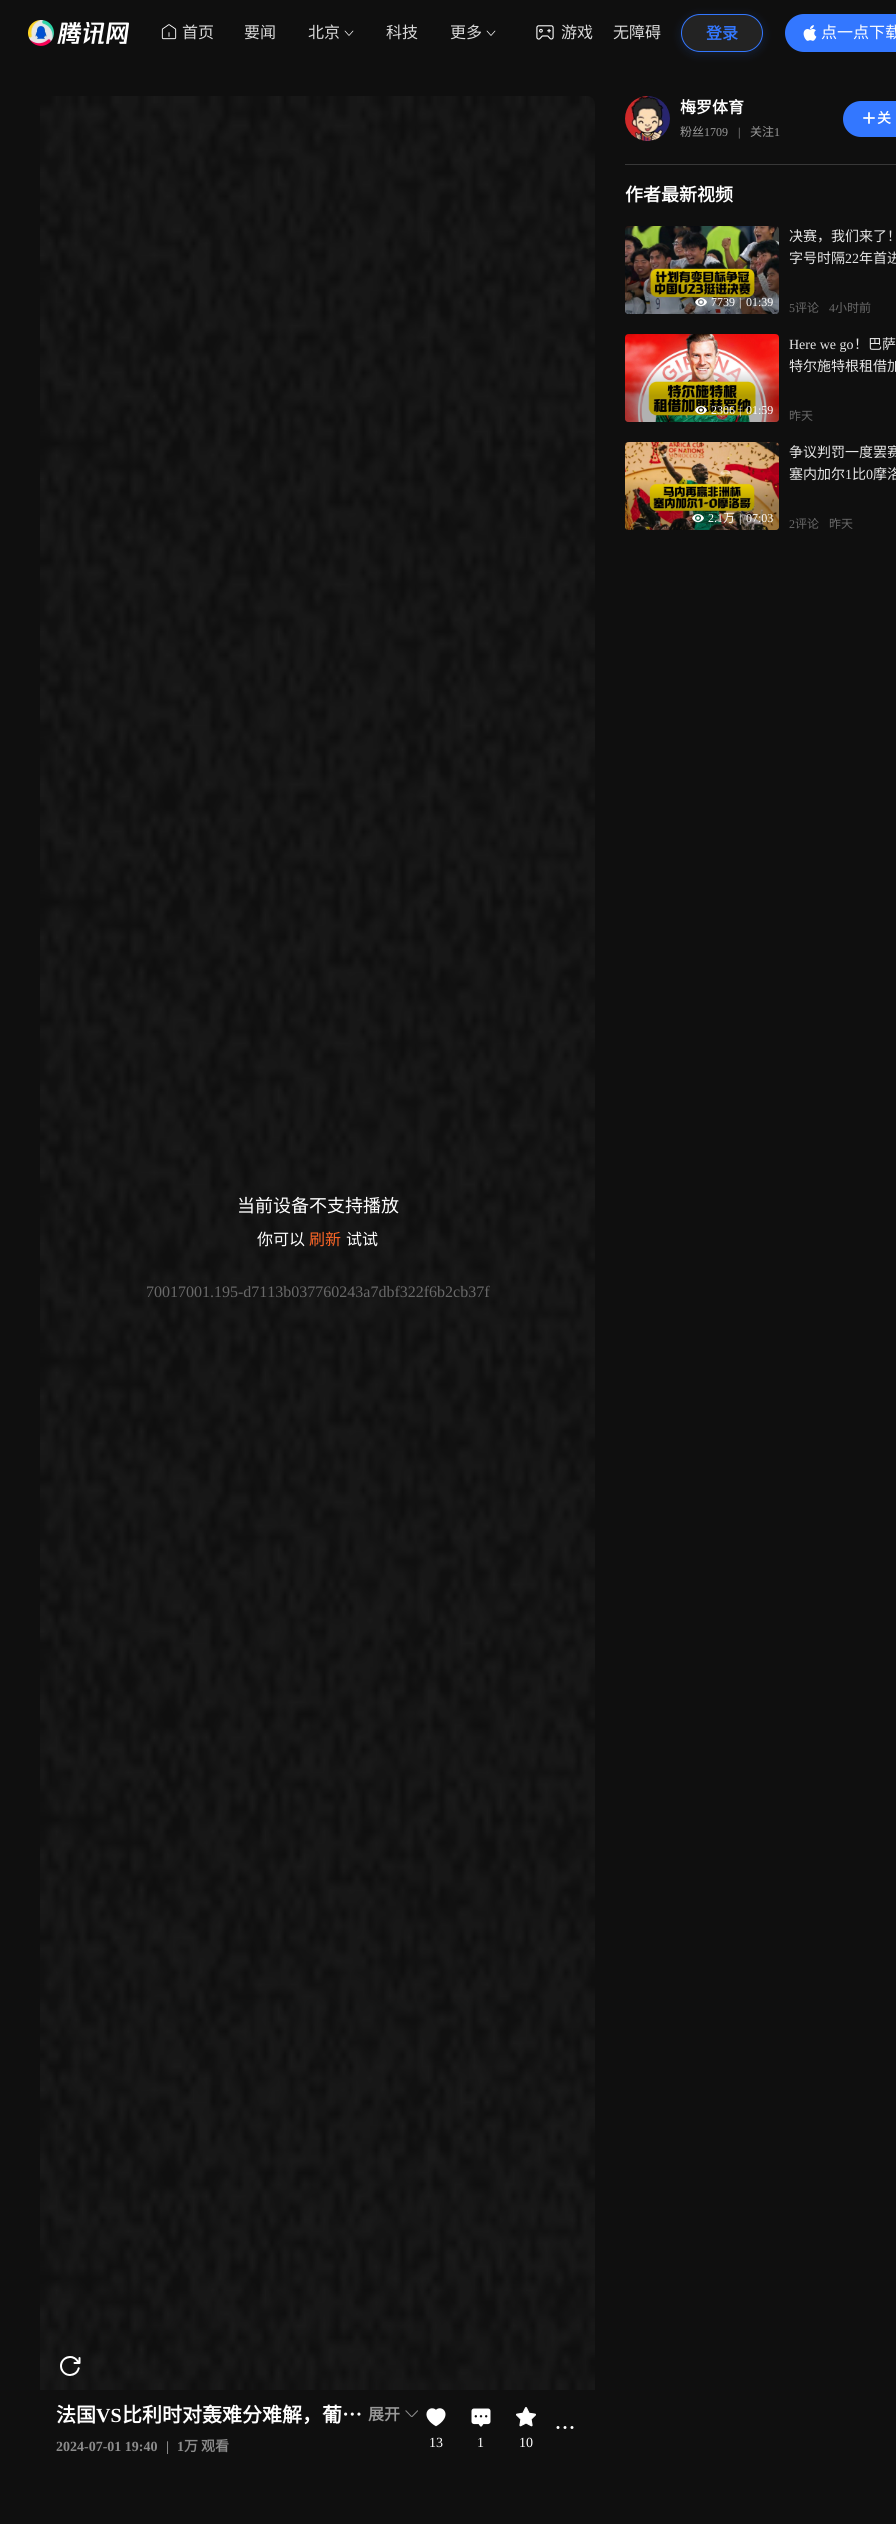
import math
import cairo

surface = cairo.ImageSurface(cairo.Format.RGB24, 896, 2524)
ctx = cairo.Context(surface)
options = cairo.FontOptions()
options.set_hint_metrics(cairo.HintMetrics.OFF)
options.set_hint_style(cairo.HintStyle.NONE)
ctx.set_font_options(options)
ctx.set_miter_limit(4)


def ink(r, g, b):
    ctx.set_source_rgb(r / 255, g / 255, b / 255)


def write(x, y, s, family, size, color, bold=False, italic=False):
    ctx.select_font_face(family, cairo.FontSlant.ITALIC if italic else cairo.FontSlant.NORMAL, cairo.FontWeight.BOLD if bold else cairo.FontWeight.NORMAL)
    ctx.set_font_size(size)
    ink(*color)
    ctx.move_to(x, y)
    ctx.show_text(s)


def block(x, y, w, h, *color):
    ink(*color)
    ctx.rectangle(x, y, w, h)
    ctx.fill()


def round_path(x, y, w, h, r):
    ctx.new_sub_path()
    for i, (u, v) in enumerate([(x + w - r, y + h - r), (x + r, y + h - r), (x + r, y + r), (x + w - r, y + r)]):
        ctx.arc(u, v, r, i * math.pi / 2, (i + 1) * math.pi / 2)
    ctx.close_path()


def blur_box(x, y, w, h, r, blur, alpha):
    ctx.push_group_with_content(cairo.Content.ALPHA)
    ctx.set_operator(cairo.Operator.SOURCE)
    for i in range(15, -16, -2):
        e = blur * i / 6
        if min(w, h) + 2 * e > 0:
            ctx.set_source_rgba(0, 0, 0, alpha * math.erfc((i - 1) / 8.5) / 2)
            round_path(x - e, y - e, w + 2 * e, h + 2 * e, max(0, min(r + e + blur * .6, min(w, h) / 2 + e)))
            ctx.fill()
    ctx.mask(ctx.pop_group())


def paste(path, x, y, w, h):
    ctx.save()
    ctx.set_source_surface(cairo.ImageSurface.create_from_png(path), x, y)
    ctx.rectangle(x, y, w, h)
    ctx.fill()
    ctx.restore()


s1 = dict(family="Noto Sans CJK SC", size=16, color=(217, 217, 217))
s2 = dict(family="Noto Sans CJK SC", size=16, color=(51, 119, 255), bold=True)
s3 = dict(family="Noto Sans CJK SC", size=16, color=(255, 255, 255))
s4 = dict(family="Noto Sans CJK SC", size=16, color=(255, 255, 255), bold=True)
s5 = dict(family="Noto Sans CJK SC", size=12, color=(153, 153, 153))
s6 = dict(family="Liberation Serif", size=12, color=(153, 153, 153))
s7 = dict(family="Noto Sans CJK SC", size=14, color=(255, 255, 255), bold=True)
s8 = dict(family="Noto Sans CJK SC", size=18, color=(255, 255, 255), bold=True)
s9 = dict(family="Liberation Serif", size=12, color=(255, 255, 255))
s10 = dict(family="Noto Sans CJK SC", size=14, color=(230, 230, 230))
s11 = dict(family="Liberation Serif", size=14, color=(230, 230, 230))
s12 = dict(family="Liberation Serif", size=12, color=(105, 105, 105))
s13 = dict(family="Noto Sans CJK SC", size=12, color=(105, 105, 105))
s14 = dict(family="Noto Sans CJK SC", size=12, color=(255, 255, 255))
s15 = dict(family="Noto Sans CJK SC", size=18, color=(255, 255, 255))
s16 = dict(family="Noto Sans CJK SC", size=16, color=(252, 101, 38))
s17 = dict(family="Liberation Serif", size=16, color=(105, 105, 105))
s18 = dict(family="Noto Sans CJK SC", size=20, color=(255, 255, 255), bold=True)
s19 = dict(family="Liberation Serif", size=20, color=(255, 255, 255), bold=True)
s20 = dict(family="Noto Sans CJK SC", size=16, color=(153, 153, 153), bold=True)
s21 = dict(family="Liberation Serif", size=14, color=(139, 139, 139), bold=True)
s22 = dict(family="Noto Sans CJK SC", size=14, color=(139, 139, 139), bold=True)
s23 = dict(family="Liberation Serif", size=14, color=(255, 255, 255))

ink(15, 15, 15)
ctx.paint()
paste("pic1.png", 28, 20, 101, 26)
paste("pic2.png", 161, 24, 16, 16)
write(182, 38, "首页", **s1)
write(244, 38, "要闻", **s1)
write(308, 38, "北京", **s1)
ctx.new_path()
ctx.move_to(353, 31)
ctx.line_to(349, 35.5)
ctx.line_to(345, 31)
ink(255, 255, 255)
ctx.set_line_width(0.7)
ctx.set_line_cap(cairo.LineCap.ROUND)
ctx.set_line_join(cairo.LineJoin.ROUND)
ctx.stroke()
write(386, 38, "科技", **s1)
write(450, 38, "更多", **s1)
ctx.new_path()
ctx.move_to(495, 31)
ctx.line_to(491, 35.5)
ctx.line_to(487, 31)
ink(255, 255, 255)
ctx.stroke()
paste("pic3.png", 536, 25, 18, 15)
write(561, 38, "游戏", **s1)
write(613, 38, "无障碍", **s1)
ctx.save()
ctx.set_fill_rule(cairo.FillRule.EVEN_ODD)
ctx.new_path()
ctx.move_to(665, 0)
ctx.line_to(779, 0)
ctx.line_to(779, 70)
ctx.line_to(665, 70)
ctx.close_path()
ctx.move_to(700, 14)
ctx.line_to(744, 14)
ctx.curve_to(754.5, 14, 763, 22.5, 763, 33)
ctx.curve_to(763, 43.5, 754.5, 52, 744, 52)
ctx.line_to(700, 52)
ctx.curve_to(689.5, 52, 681, 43.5, 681, 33)
ctx.curve_to(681, 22.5, 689.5, 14, 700, 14)
ctx.close_path()
ctx.clip()
ink(51, 119, 255)
blur_box(681, 16, 82, 38, 19, 5, 0.16)
ctx.restore()
ctx.set_source_rgba(0.851, 0.851, 0.851, 0.1)
round_path(681.5, 14.5, 81, 37, 18.5)
ctx.fill_preserve()
ink(51, 119, 255)
ctx.set_line_width(1)
ctx.set_line_cap(cairo.LineCap.BUTT)
ctx.set_line_join(cairo.LineJoin.MITER)
ctx.stroke()
write(706, 39, "登录", **s2)
round_path(785, 14, 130, 38, 19)
ctx.fill()
paste("pic4.png", 803, 25, 14, 16)
write(821, 38, "点一点下载", **s3)
paste("pic5.png", 625, 96, 45, 45)
write(680, 113, "梅罗体育", **s4)
write(680, 136, "粉丝", **s5)
write(704, 136, "1709", **s6)
write(738, 136, "|", **s6)
write(750, 136, "关注", **s5)
write(774, 136, "1", **s6)
ink(51, 119, 255)
round_path(843, 101, 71, 36, 18)
ctx.fill()
paste("pic6.png", 863, 112, 12, 12)
write(877, 123, "关", **s7)
block(625, 164, 271, 1, 56, 56, 56)
write(625, 201, "作者最新视频", **s8)
paste("pic7.png", 625, 226, 154, 88)
gradient = cairo.LinearGradient(702, 314, 702, 226)
gradient.add_color_stop_rgba(0.3, 0, 0, 0, 0.3)
gradient.add_color_stop_rgba(0.6, 0, 0, 0, 0)
ctx.set_source(gradient)
round_path(625, 226, 154, 88, 4)
ctx.fill()
paste("pic8.png", 695, 298, 12, 9)
write(711, 306, "7739", **s9)
write(739, 306, "|", **s9)
write(746, 306, "01:39", **s9)
write(789, 241, "决赛，我们来了！", **s10)
write(789, 263, "字号时隔", **s10)
write(845, 263, "22", **s11)
write(859, 263, "年首进", **s10)
write(789, 312, "5", **s12)
write(795, 312, "评论", **s13)
write(829, 312, "4", **s12)
write(835, 312, "小时前", **s13)
paste("pic9.png", 625, 334, 154, 88)
gradient = cairo.LinearGradient(702, 422, 702, 334)
gradient.add_color_stop_rgba(0.3, 0, 0, 0, 0.3)
gradient.add_color_stop_rgba(0.6, 0, 0, 0, 0)
ctx.set_source(gradient)
round_path(625, 334, 154, 88, 4)
ctx.fill()
paste("pic10.png", 695, 406, 12, 9)
write(711, 414, "2306", **s9)
write(739, 414, "|", **s9)
write(746, 414, "01:59", **s9)
write(789, 349, "Here we go", **s11)
write(854, 349, "！巴萨", **s10)
write(789, 371, "特尔施特根租借加", **s10)
write(789, 420, "昨天", **s13)
paste("pic11.png", 625, 442, 154, 88)
gradient = cairo.LinearGradient(702, 530, 702, 442)
gradient.add_color_stop_rgba(0.3, 0, 0, 0, 0.3)
gradient.add_color_stop_rgba(0.6, 0, 0, 0, 0)
ctx.set_source(gradient)
round_path(625, 442, 154, 88, 4)
ctx.fill()
paste("pic12.png", 692, 514, 12, 9)
write(708, 522, "2.1", **s9)
write(723, 522, "万", **s14)
write(739, 522, "|", **s9)
write(746, 522, "07:03", **s9)
write(789, 457, "争议判罚一度罢赛", **s10)
write(789, 479, "塞内加尔", **s10)
write(845, 479, "1", **s11)
write(852, 479, "比", **s10)
write(866, 479, "0", **s11)
write(873, 479, "摩洛", **s10)
write(789, 528, "2", **s12)
write(795, 528, "评论", **s13)
write(829, 528, "昨天", **s13)
paste("pic13.png", 40, 96, 555, 2294)
write(237, 1212, "当前设备不支持播放", **s15)
write(257, 1245, "你可以", **s3)
write(309, 1245, "刷新", **s16)
write(346, 1245, "试试", **s3)
write(146, 1297, "70017001.195-d7113b037760243a7dbf322f6b2cb37f", **s17)
write(56, 2422, "法国", **s18)
write(96, 2422, "VS", **s19)
write(122, 2422, "比利时对轰难分难解，葡…", **s18)
write(368, 2420, "展开", **s20)
paste("pic14.png", 405, 2410, 13, 7)
write(56, 2451, "2024-07-01 19:40", **s21)
write(166, 2451, "|", **s21)
write(177, 2451, "1", **s21)
write(184, 2451, "万", **s22)
write(201, 2451, "观看", **s22)
paste("pic15.png", 556, 2426, 18, 3)
paste("pic16.png", 426, 2408, 20, 19)
write(429, 2447, "13", **s23)
paste("pic17.png", 471, 2408, 20, 19)
write(477, 2447, "1", **s23)
paste("pic18.png", 516, 2407, 20, 20)
write(519, 2447, "10", **s23)
surface.write_to_png("screenshot.png")
